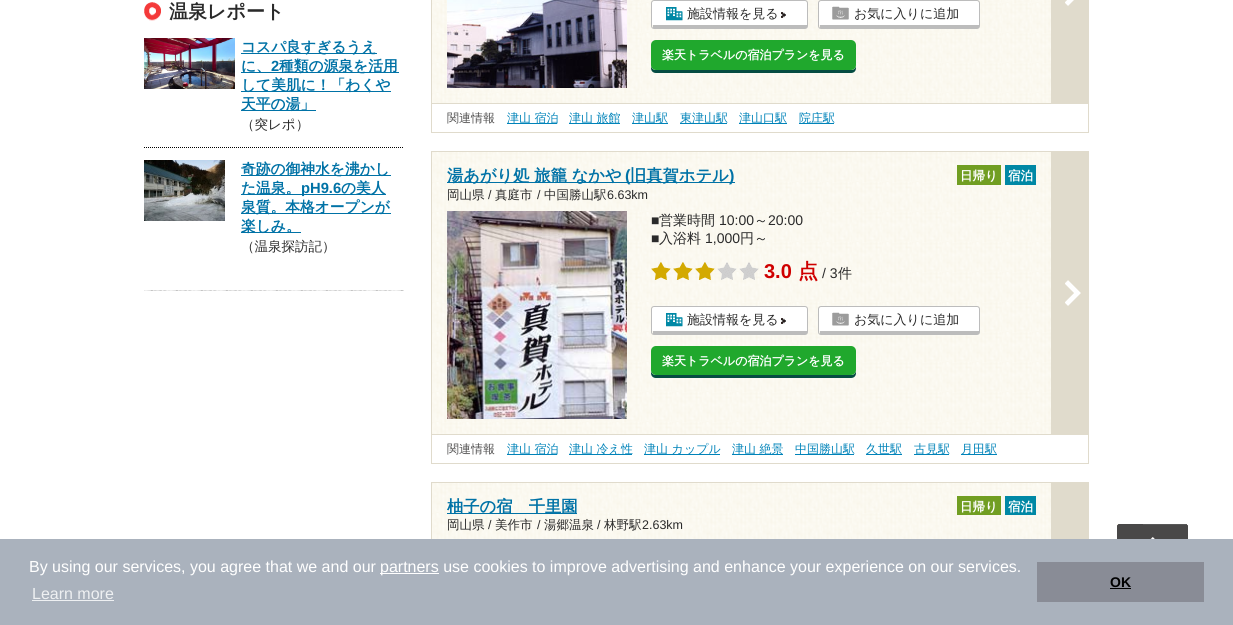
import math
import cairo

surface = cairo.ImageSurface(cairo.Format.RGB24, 1233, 625)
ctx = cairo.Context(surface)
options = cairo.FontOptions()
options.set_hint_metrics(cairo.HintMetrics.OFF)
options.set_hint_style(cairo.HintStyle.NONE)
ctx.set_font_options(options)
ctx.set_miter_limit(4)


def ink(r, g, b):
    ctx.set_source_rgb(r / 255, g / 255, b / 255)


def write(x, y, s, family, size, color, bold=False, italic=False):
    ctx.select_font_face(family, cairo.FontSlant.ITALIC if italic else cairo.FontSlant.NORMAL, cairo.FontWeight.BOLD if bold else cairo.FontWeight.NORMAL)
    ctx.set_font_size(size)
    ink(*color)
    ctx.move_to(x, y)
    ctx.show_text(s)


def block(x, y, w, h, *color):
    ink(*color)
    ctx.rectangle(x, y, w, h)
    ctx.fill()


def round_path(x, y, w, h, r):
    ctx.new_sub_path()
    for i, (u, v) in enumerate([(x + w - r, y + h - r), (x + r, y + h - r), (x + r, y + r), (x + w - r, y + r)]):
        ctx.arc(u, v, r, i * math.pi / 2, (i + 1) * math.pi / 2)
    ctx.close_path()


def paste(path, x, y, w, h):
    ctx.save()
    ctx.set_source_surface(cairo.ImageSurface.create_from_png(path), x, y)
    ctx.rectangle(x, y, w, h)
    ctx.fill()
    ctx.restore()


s1 = dict(family="WenQuanYi Zen Hei", size=19, color=(42, 42, 42), bold=True)
s2 = dict(family="WenQuanYi Zen Hei", size=14.75, color=(0, 114, 166), bold=True)
s3 = dict(family="Liberation Sans", size=14.75, color=(0, 114, 166), bold=True)
s4 = dict(family="WenQuanYi Zen Hei Medium", size=13.5, color=(42, 42, 42))
s5 = dict(family="WenQuanYi Zen Hei Medium", size=13, color=(42, 42, 42))
s6 = dict(family="WenQuanYi Zen Hei", size=12, color=(255, 255, 255), bold=True)
s7 = dict(family="WenQuanYi Zen Hei Medium", size=12, color=(80, 79, 79))
s8 = dict(family="WenQuanYi Zen Hei Medium", size=12, color=(0, 131, 185))
s9 = dict(family="WenQuanYi Zen Hei", size=16.25, color=(0, 114, 166), bold=True)
s10 = dict(family="Liberation Sans", size=16.25, color=(0, 114, 166), bold=True)
s11 = dict(family="WenQuanYi Zen Hei Medium", size=12.5, color=(42, 42, 42))
s12 = dict(family="Liberation Sans", size=12.5, color=(42, 42, 42))
s13 = dict(family="WenQuanYi Zen Hei", size=12.5, color=(255, 255, 255), bold=True)
s14 = dict(family="Liberation Sans", size=14, color=(42, 42, 42))
s15 = dict(family="WenQuanYi Zen Hei Medium", size=14, color=(42, 42, 42))
s16 = dict(family="Liberation Sans", size=20, color=(207, 0, 0), bold=True)
s17 = dict(family="WenQuanYi Zen Hei", size=20, color=(207, 0, 0), bold=True)
s18 = dict(family="Liberation Sans", size=16, color=(255, 255, 255))
s19 = dict(family="Liberation Sans", size=16, color=(238, 240, 242))
s20 = dict(family="Liberation Sans", size=14, color=(0, 0, 0), bold=True)

ink(255, 255, 255)
ctx.paint()
paste("pic1.png", 144, 2, 17, 19)
write(169, 18, "温泉レポート", **s1)
paste("pic2.png", 144, 290, 260, 1)
paste("pic3.png", 144, 38, 91, 51)
block(241, 53, 136, 1, 0, 114, 166)
write(241, 52, "コスパ良すぎるうえ", **s2)
block(241, 72, 158, 1, 0, 114, 166)
write(241, 71, "に、", **s2)
write(271, 71, "2", **s3)
write(279, 71, "種類の源泉を活用", **s2)
block(241, 91, 150, 1, 0, 114, 166)
write(241, 90, "して美肌に！「わくや", **s2)
block(241, 110, 75, 1, 0, 114, 166)
write(241, 109, "天平の湯」", **s2)
write(241, 129, "（突レポ）", **s4)
ctx.new_path()
ctx.move_to(144, 147.5)
ctx.line_to(404, 147.5)
ink(0, 0, 0)
ctx.set_line_width(1)
ctx.set_dash([1, 1])
ctx.stroke()
paste("pic4.png", 144, 160, 81, 61)
block(241, 175, 150, 1, 0, 114, 166)
write(241, 174, "奇跡の御神水を沸かし", **s2)
block(241, 194, 145, 1, 0, 114, 166)
write(241, 193, "た温泉。", **s2)
write(301, 193, "pH9.6", **s3)
write(341, 193, "の美人", **s2)
block(241, 213, 150, 1, 0, 114, 166)
write(241, 212, "泉質。本格オープンが", **s2)
block(241, 232, 60, 1, 0, 114, 166)
write(241, 231, "楽しみ。", **s2)
write(241, 251, "（温泉探訪記）", **s4)
ctx.rectangle(431.5, -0.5, 657, 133)
ink(224, 219, 204)
ctx.set_dash([])
ctx.stroke()
block(1051, 0, 37, 103, 224, 219, 204)
paste("pic5.png", 1065, 0, 9, 6)
paste("pic6.png", 432, 0, 619, 103)
paste("pic7.png", 447, 0, 180, 88)
ink(255, 255, 255)
ctx.new_path()
ctx.move_to(654, 1)
ctx.line_to(805, 1)
ctx.curve_to(806, 1, 807, 2, 807, 3)
ctx.line_to(807, 25)
ctx.line_to(652, 25)
ctx.line_to(652, 3)
ctx.curve_to(652, 2, 653, 1, 654, 1)
ctx.close_path()
ctx.fill()
paste("pic8.png", 666, 7, 120, 14)
round_path(651.5, 0.5, 156, 28, 2.5)
ink(188, 188, 188)
ctx.stroke()
block(653, 25, 154, 3, 188, 188, 188)
write(687, 18, "施設情報を見る", **s5)
ink(255, 255, 255)
ctx.new_path()
ctx.move_to(821, 1)
ctx.line_to(977, 1)
ctx.curve_to(978, 1, 979, 2, 979, 3)
ctx.line_to(979, 25)
ctx.line_to(819, 25)
ctx.line_to(819, 3)
ctx.curve_to(819, 2, 820, 1, 821, 1)
ctx.close_path()
ctx.fill()
paste("pic9.png", 832, 6, 17, 14)
round_path(818.5, 0.5, 161, 28, 2.5)
ink(188, 188, 188)
ctx.stroke()
block(820, 25, 159, 3, 188, 188, 188)
write(854, 18, "お気に入りに追加", **s5)
ink(5, 76, 66)
ctx.new_path()
ctx.move_to(651, 65)
ctx.line_to(651, 68)
ctx.curve_to(651, 71, 653, 73, 656, 73)
ctx.line_to(851, 73)
ctx.curve_to(854, 73, 856, 71, 856, 68)
ctx.line_to(856, 65)
ctx.curve_to(856, 68, 854, 70, 851, 70)
ctx.line_to(656, 70)
ctx.curve_to(653, 70, 651, 68, 651, 65)
ctx.close_path()
ctx.fill()
ink(32, 168, 45)
round_path(651, 40, 205, 30, 5)
ctx.fill()
write(662, 59, "楽天トラベルの宿泊プランを見る", **s6)
block(432, 103, 656, 1, 224, 219, 204)
write(447, 122, "関連情報", **s7)
block(507, 123, 50, 1, 0, 131, 185)
write(507, 122, "津山 宿泊", **s8)
block(569, 123, 51, 1, 0, 131, 185)
write(569, 122, "津山 旅館", **s8)
block(632, 123, 36, 1, 0, 131, 185)
write(632, 122, "津山駅", **s8)
block(680, 123, 47, 1, 0, 131, 185)
write(680, 122, "東津山駅", **s8)
block(739, 123, 48, 1, 0, 131, 185)
write(739, 122, "津山口駅", **s8)
block(799, 123, 35, 1, 0, 131, 185)
write(799, 122, "院庄駅", **s8)
ctx.rectangle(431.5, 151.5, 657, 312)
ink(224, 219, 204)
ctx.stroke()
block(1051, 152, 37, 282, 224, 219, 204)
paste("pic10.png", 432, 152, 619, 282)
block(447, 182, 288, 1, 0, 114, 166)
write(447, 181, "湯あがり処 旅籠 なかや", **s9)
write(625, 181, "(", **s10)
write(630, 181, "旧真賀ホテル", **s9)
write(729, 181, ")", **s10)
write(447, 199, "岡山県", **s11)
write(488, 199, "/", **s12)
write(495, 199, "真庭市", **s11)
write(537, 199, "/", **s12)
write(544, 199, "中国勝山駅", **s11)
write(607, 199, "6.63km", **s12)
block(957, 165, 44, 20, 113, 158, 34)
write(960, 180, "日帰り", **s13)
block(1005, 165, 31, 20, 0, 136, 165)
write(1008, 180, "宿泊", **s13)
paste("pic11.png", 447, 211, 180, 208)
write(651, 225, "■", **s14)
write(659, 225, "営業時間", **s15)
write(719, 225, "10:00", **s14)
write(754, 225, "～", **s15)
write(768, 225, "20:00", **s14)
write(651, 243, "■", **s14)
write(659, 243, "入浴料", **s15)
write(705, 243, "1,000", **s14)
write(740, 243, "円～", **s15)
paste("pic12.png", 651, 262, 20, 18)
paste("pic13.png", 673, 262, 20, 18)
paste("pic14.png", 695, 262, 20, 18)
paste("pic15.png", 717, 262, 20, 18)
paste("pic16.png", 739, 262, 20, 18)
write(764, 278, "3.0", **s16)
write(798, 278, "点", **s17)
write(822, 278, "/ 3", **s14)
write(838, 278, "件", **s15)
ink(255, 255, 255)
ctx.new_path()
ctx.move_to(654, 307)
ctx.line_to(805, 307)
ctx.curve_to(806, 307, 807, 308, 807, 309)
ctx.line_to(807, 331)
ctx.line_to(652, 331)
ctx.line_to(652, 309)
ctx.curve_to(652, 308, 653, 307, 654, 307)
ctx.close_path()
ctx.fill()
paste("pic8.png", 666, 313, 120, 14)
round_path(651.5, 306.5, 156, 28, 2.5)
ink(188, 188, 188)
ctx.stroke()
block(653, 331, 154, 3, 188, 188, 188)
write(687, 324, "施設情報を見る", **s5)
ink(255, 255, 255)
ctx.new_path()
ctx.move_to(821, 307)
ctx.line_to(977, 307)
ctx.curve_to(978, 307, 979, 308, 979, 309)
ctx.line_to(979, 331)
ctx.line_to(819, 331)
ctx.line_to(819, 309)
ctx.curve_to(819, 308, 820, 307, 821, 307)
ctx.close_path()
ctx.fill()
paste("pic9.png", 832, 312, 17, 14)
round_path(818.5, 306.5, 161, 28, 2.5)
ink(188, 188, 188)
ctx.stroke()
block(820, 331, 159, 3, 188, 188, 188)
write(854, 324, "お気に入りに追加", **s5)
ink(5, 76, 66)
ctx.new_path()
ctx.move_to(651, 370)
ctx.line_to(651, 373)
ctx.curve_to(651, 376, 653, 378, 656, 378)
ctx.line_to(851, 378)
ctx.curve_to(854, 378, 856, 376, 856, 373)
ctx.line_to(856, 370)
ctx.curve_to(856, 373, 854, 375, 851, 375)
ctx.line_to(656, 375)
ctx.curve_to(653, 375, 651, 373, 651, 370)
ctx.close_path()
ctx.fill()
ink(32, 168, 45)
round_path(651, 346, 205, 29, 5)
ctx.fill()
write(662, 365, "楽天トラベルの宿泊プランを見る", **s6)
paste("pic17.png", 1065, 280, 16, 26)
block(432, 434, 656, 1, 224, 219, 204)
write(447, 453, "関連情報", **s7)
block(507, 454, 50, 1, 0, 131, 185)
write(507, 453, "津山 宿泊", **s8)
block(569, 454, 63, 1, 0, 131, 185)
write(569, 453, "津山 冷え性", **s8)
block(644, 454, 76, 1, 0, 131, 185)
write(644, 453, "津山 カップル", **s8)
block(732, 454, 51, 1, 0, 131, 185)
write(732, 453, "津山 絶景", **s8)
block(795, 454, 59, 1, 0, 131, 185)
write(795, 453, "中国勝山駅", **s8)
block(866, 454, 36, 1, 0, 131, 185)
write(866, 453, "久世駅", **s8)
block(914, 454, 35, 1, 0, 131, 185)
write(914, 453, "古見駅", **s8)
block(961, 454, 36, 1, 0, 131, 185)
write(961, 453, "月田駅", **s8)
ctx.rectangle(431.5, 482.5, 657, 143)
ink(224, 219, 204)
ctx.stroke()
block(1051, 483, 37, 56, 224, 219, 204)
paste("pic18.png", 432, 483, 619, 56)
block(447, 513, 130, 1, 0, 114, 166)
write(447, 512, "柚子の宿　千里園", **s9)
write(447, 529, "岡山県", **s11)
write(488, 529, "/", **s12)
write(495, 529, "美作市", **s11)
write(537, 529, "/", **s12)
write(544, 529, "湯郷温泉", **s11)
write(597, 529, "/", **s12)
write(604, 529, "林野駅", **s11)
write(642, 529, "2.63km", **s12)
block(957, 496, 44, 19, 113, 158, 34)
write(960, 511, "日帰り", **s13)
block(1005, 496, 31, 19, 0, 136, 165)
write(1008, 511, "宿泊", **s13)
paste("pic19.png", 1117, 524, 71, 15)
block(0, 539, 1233, 86, 170, 178, 189)
write(29, 572, "By using our services, you agree that we and our", **s18)
block(380, 573, 59, 1, 255, 255, 255)
write(380, 572, "partners use cookies to improve advertising and enhance your experience on our services.", **s18)
write(32, 599, "Learn more", **s19)
block(32, 600, 82, 1, 238, 240, 242)
block(1037, 562, 167, 40, 137, 140, 150)
write(1110, 587, "OK", **s20)
block(1110, 588, 21, 1, 0, 0, 0)
surface.write_to_png("screenshot.png")
